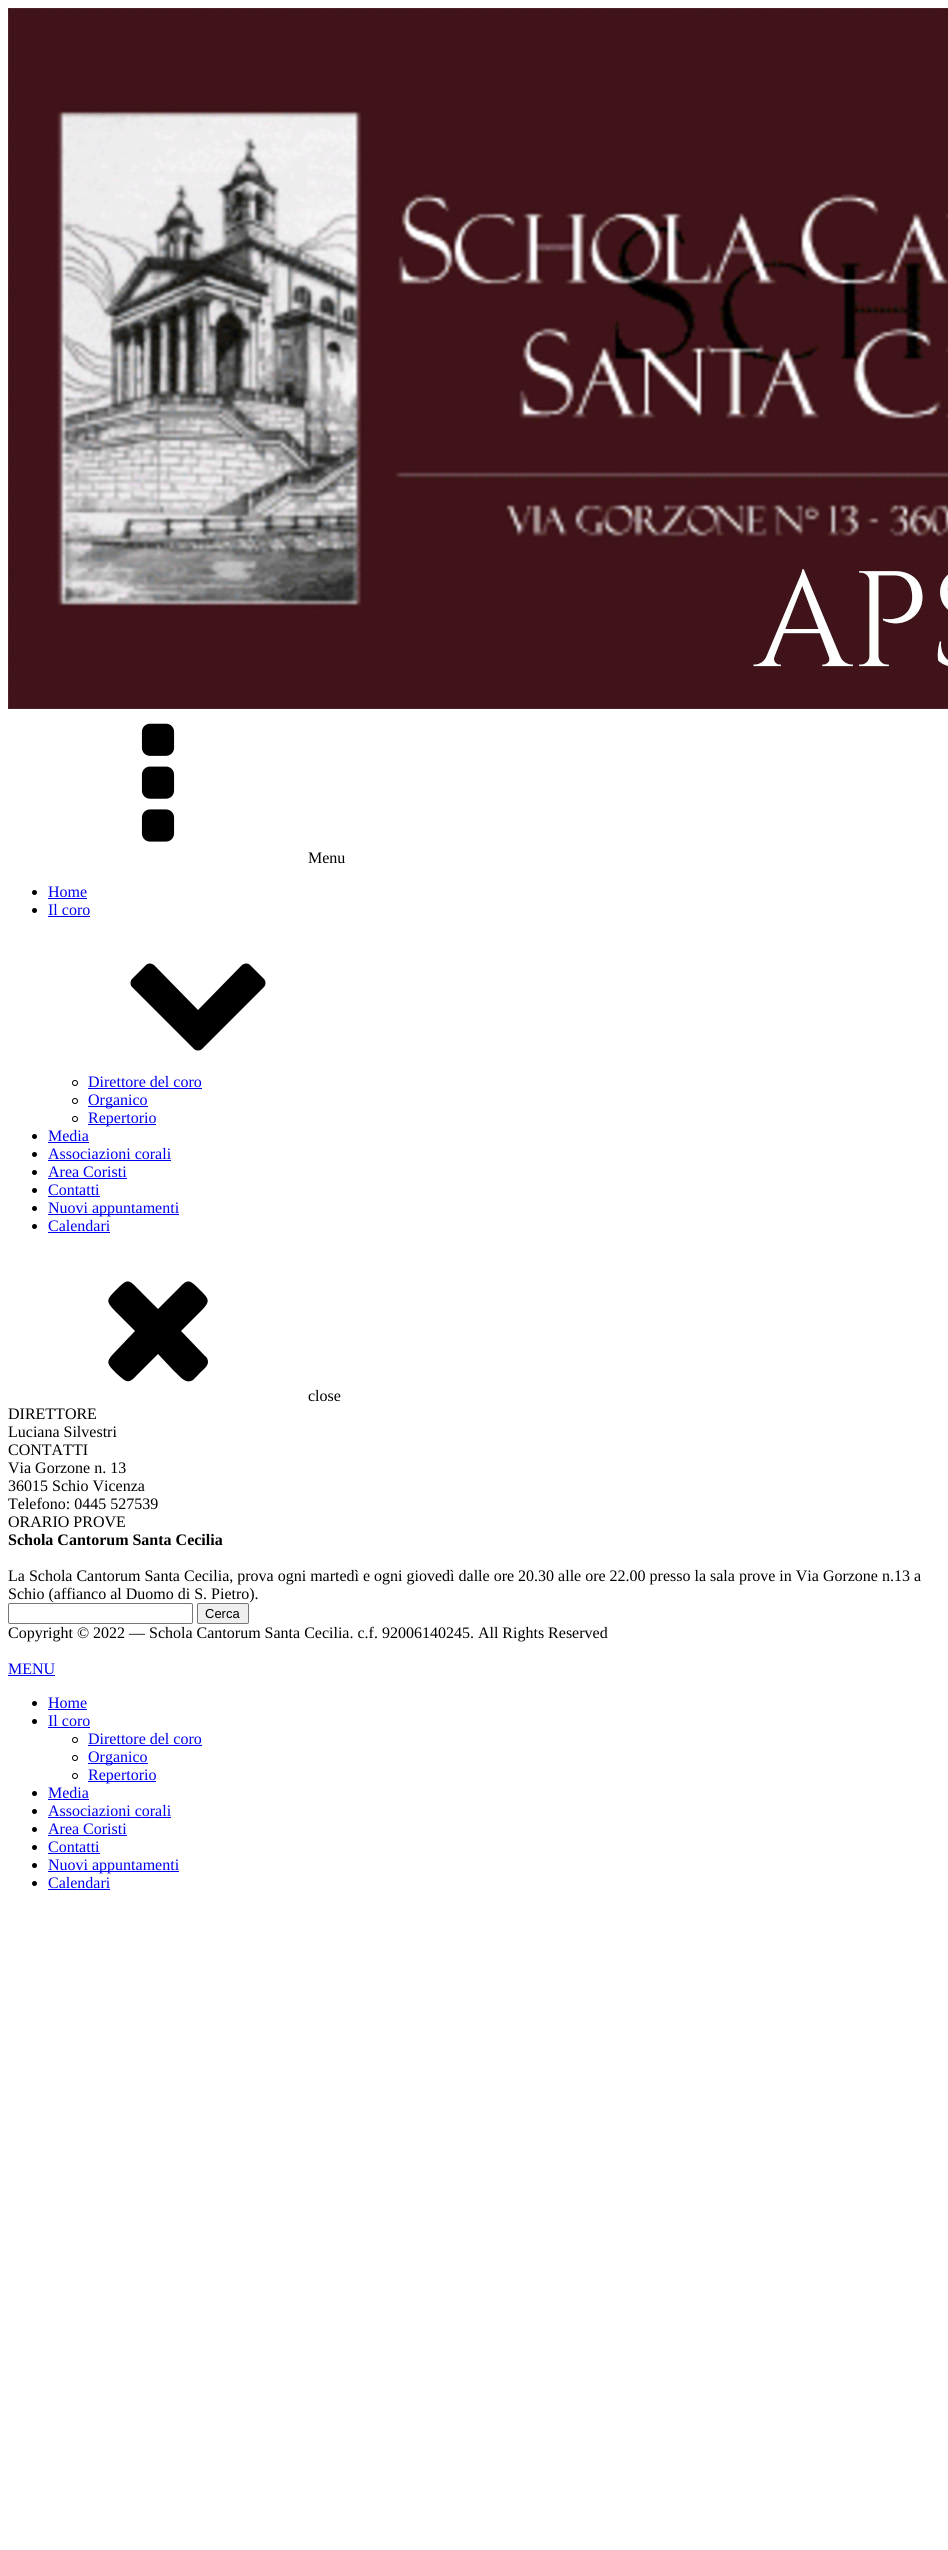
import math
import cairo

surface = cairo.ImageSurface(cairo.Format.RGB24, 948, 2550)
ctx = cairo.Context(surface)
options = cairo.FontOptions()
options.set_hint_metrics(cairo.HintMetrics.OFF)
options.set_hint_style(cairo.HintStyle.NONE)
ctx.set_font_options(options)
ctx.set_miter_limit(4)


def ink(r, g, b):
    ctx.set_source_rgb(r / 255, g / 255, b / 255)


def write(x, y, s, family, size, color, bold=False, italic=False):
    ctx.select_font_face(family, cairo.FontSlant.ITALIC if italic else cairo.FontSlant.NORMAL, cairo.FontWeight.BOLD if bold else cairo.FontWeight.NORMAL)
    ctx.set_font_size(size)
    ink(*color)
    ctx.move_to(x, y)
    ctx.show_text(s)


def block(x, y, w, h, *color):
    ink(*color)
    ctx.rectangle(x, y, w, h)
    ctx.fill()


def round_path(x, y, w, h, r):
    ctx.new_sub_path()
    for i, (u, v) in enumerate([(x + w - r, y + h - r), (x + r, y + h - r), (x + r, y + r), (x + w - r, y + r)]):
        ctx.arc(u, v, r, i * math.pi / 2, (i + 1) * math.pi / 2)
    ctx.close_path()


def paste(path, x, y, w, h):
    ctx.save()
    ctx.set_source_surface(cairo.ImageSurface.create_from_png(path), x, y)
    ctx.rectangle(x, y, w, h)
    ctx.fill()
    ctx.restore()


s1 = dict(family="Liberation Serif", size=16, color=(0, 0, 0))
s2 = dict(family="Liberation Serif", size=16, color=(0, 0, 238))
s3 = dict(family="Liberation Serif", size=16, color=(0, 0, 0), bold=True)
s4 = dict(family="Liberation Sans", size=13, color=(0, 0, 0))

ink(255, 255, 255)
ctx.paint()
paste("pic1.png", 8, 8, 940, 701)
paste("pic2.png", 141, 723, 34, 119)
write(308, 863, "Menu", **s1)
ctx.new_path()
ctx.arc(34.5, 892.5, 2.5, 0, 2 * math.pi)
ctx.fill()
write(48, 897, "Home", **s2)
block(48, 898, 39, 1, 0, 0, 238)
ink(0, 0, 0)
ctx.new_path()
ctx.arc(34.5, 910.5, 2.5, 0, 2 * math.pi)
ctx.fill()
write(48, 915, "Il coro", **s2)
block(48, 916, 42, 1, 0, 0, 238)
ink(0, 0, 0)
ctx.new_path()
ctx.move_to(264, 987)
ctx.line_to(202, 1049)
ctx.curve_to(200, 1051, 196, 1051, 194, 1049)
ctx.line_to(132, 987)
ctx.curve_to(130, 985, 130, 981, 132, 979)
ctx.line_to(146, 965)
ctx.curve_to(148, 963, 151, 963, 154, 965)
ctx.line_to(198, 1010)
ctx.line_to(242, 965)
ctx.curve_to(245, 963, 248, 963, 250, 965)
ctx.line_to(264, 979)
ctx.curve_to(266, 981, 266, 985, 264, 987)
ctx.close_path()
ctx.fill()
ctx.arc(75, 1083, 2.5, 0, 2 * math.pi)
ctx.set_line_width(1)
ctx.stroke()
write(88, 1087, "Direttore del coro", **s2)
block(88, 1088, 114, 1, 0, 0, 238)
ctx.new_path()
ctx.arc(75, 1101, 2.5, 0, 2 * math.pi)
ink(0, 0, 0)
ctx.stroke()
block(88, 1106, 60, 1, 0, 0, 238)
write(88, 1105, "Organico", **s2)
ctx.new_path()
ctx.arc(75, 1119, 2.5, 0, 2 * math.pi)
ink(0, 0, 0)
ctx.stroke()
block(88, 1124, 68, 1, 0, 0, 238)
write(88, 1123, "Repertorio", **s2)
ink(0, 0, 0)
ctx.new_path()
ctx.arc(34.5, 1136.5, 2.5, 0, 2 * math.pi)
ctx.fill()
write(48, 1141, "Media", **s2)
block(48, 1142, 41, 1, 0, 0, 238)
ink(0, 0, 0)
ctx.new_path()
ctx.arc(34.5, 1154.5, 2.5, 0, 2 * math.pi)
ctx.fill()
write(48, 1159, "Associazioni corali", **s2)
block(48, 1160, 123, 1, 0, 0, 238)
ink(0, 0, 0)
ctx.new_path()
ctx.arc(34.5, 1172.5, 2.5, 0, 2 * math.pi)
ctx.fill()
write(48, 1177, "Area Coristi", **s2)
block(48, 1178, 79, 1, 0, 0, 238)
ink(0, 0, 0)
ctx.new_path()
ctx.arc(34.5, 1190.5, 2.5, 0, 2 * math.pi)
ctx.fill()
write(48, 1195, "Contatti", **s2)
block(48, 1196, 52, 1, 0, 0, 238)
ink(0, 0, 0)
ctx.new_path()
ctx.arc(34.5, 1208.5, 2.5, 0, 2 * math.pi)
ctx.fill()
block(48, 1214, 131, 1, 0, 0, 238)
write(48, 1213, "Nuovi appuntamenti", **s2)
ink(0, 0, 0)
ctx.new_path()
ctx.arc(34.5, 1226.5, 2.5, 0, 2 * math.pi)
ctx.fill()
write(48, 1231, "Calendari", **s2)
block(48, 1232, 62, 1, 0, 0, 238)
ink(0, 0, 0)
ctx.new_path()
ctx.move_to(208, 1362)
ctx.curve_to(208, 1367, 201, 1371, 198, 1375)
ctx.line_to(193, 1380)
ctx.curve_to(185, 1385, 179, 1375, 174, 1371)
ctx.line_to(158, 1354)
ctx.line_to(137, 1375)
ctx.curve_to(128, 1385, 126, 1382, 116, 1373)
ctx.curve_to(107, 1364, 105, 1362, 115, 1352)
ctx.line_to(135, 1331)
ctx.line_to(115, 1311)
ctx.curve_to(105, 1301, 107, 1299, 116, 1290)
ctx.curve_to(126, 1280, 128, 1278, 137, 1288)
ctx.line_to(158, 1309)
ctx.line_to(179, 1288)
ctx.curve_to(188, 1278, 190, 1280, 200, 1290)
ctx.curve_to(209, 1299, 211, 1301, 201, 1311)
ctx.line_to(181, 1331)
ctx.line_to(205, 1356)
ctx.curve_to(207, 1357, 208, 1360, 208, 1362)
ctx.close_path()
ctx.fill()
write(308, 1401, "close", **s1)
write(8, 1419, "DIRETTORE", **s1)
write(8, 1437, "Luciana Silvestri", **s1)
write(8, 1455, "CONTATTI", **s1)
write(8, 1473, "Via Gorzone n. 13", **s1)
write(8, 1491, "36015 Schio Vicenza", **s1)
write(8, 1509, "Telefono: 0445 527539", **s1)
write(8, 1527, "ORARIO PROVE", **s1)
write(8, 1545, "Schola Cantorum Santa Cecilia", **s3)
write(8, 1581, "La Schola Cantorum Santa Cecilia, prova ogni martedì e ogni giovedì dalle ore 20.30 alle ore 22.00 presso la sala prove in Via Gorzone n.13 a", **s1)
write(8, 1599, "Schio (affianco al Duomo di S. Pietro).", **s1)
round_path(8.5, 1603.5, 184, 20, 1.5)
ink(118, 118, 118)
ctx.stroke()
ink(239, 239, 239)
round_path(197.5, 1603.5, 51, 20, 1.5)
ctx.fill_preserve()
ink(118, 118, 118)
ctx.stroke()
write(205, 1618, "Cerca", **s4)
write(8, 1638, "Copyright © 2022 — Schola Cantorum Santa Cecilia. c.f. 92006140245. All Rights Reserved", **s1)
write(8, 1674, "MENU", **s2)
block(8, 1675, 47, 1, 0, 0, 238)
ink(0, 0, 0)
ctx.new_path()
ctx.arc(34.5, 1703.5, 2.5, 0, 2 * math.pi)
ctx.fill()
write(48, 1708, "Home", **s2)
block(48, 1709, 39, 1, 0, 0, 238)
ink(0, 0, 0)
ctx.new_path()
ctx.arc(34.5, 1721.5, 2.5, 0, 2 * math.pi)
ctx.fill()
write(48, 1726, "Il coro", **s2)
block(48, 1727, 42, 1, 0, 0, 238)
ctx.new_path()
ctx.arc(75, 1740, 2.5, 0, 2 * math.pi)
ink(0, 0, 0)
ctx.stroke()
write(88, 1744, "Direttore del coro", **s2)
block(88, 1745, 114, 1, 0, 0, 238)
ctx.new_path()
ctx.arc(75, 1758, 2.5, 0, 2 * math.pi)
ink(0, 0, 0)
ctx.stroke()
block(88, 1763, 60, 1, 0, 0, 238)
write(88, 1762, "Organico", **s2)
ctx.new_path()
ctx.arc(75, 1776, 2.5, 0, 2 * math.pi)
ink(0, 0, 0)
ctx.stroke()
block(88, 1781, 68, 1, 0, 0, 238)
write(88, 1780, "Repertorio", **s2)
ink(0, 0, 0)
ctx.new_path()
ctx.arc(34.5, 1793.5, 2.5, 0, 2 * math.pi)
ctx.fill()
write(48, 1798, "Media", **s2)
block(48, 1799, 41, 1, 0, 0, 238)
ink(0, 0, 0)
ctx.new_path()
ctx.arc(34.5, 1811.5, 2.5, 0, 2 * math.pi)
ctx.fill()
write(48, 1816, "Associazioni corali", **s2)
block(48, 1817, 123, 1, 0, 0, 238)
ink(0, 0, 0)
ctx.new_path()
ctx.arc(34.5, 1829.5, 2.5, 0, 2 * math.pi)
ctx.fill()
write(48, 1834, "Area Coristi", **s2)
block(48, 1835, 79, 1, 0, 0, 238)
ink(0, 0, 0)
ctx.new_path()
ctx.arc(34.5, 1847.5, 2.5, 0, 2 * math.pi)
ctx.fill()
write(48, 1852, "Contatti", **s2)
block(48, 1853, 52, 1, 0, 0, 238)
ink(0, 0, 0)
ctx.new_path()
ctx.arc(34.5, 1865.5, 2.5, 0, 2 * math.pi)
ctx.fill()
block(48, 1871, 131, 1, 0, 0, 238)
write(48, 1870, "Nuovi appuntamenti", **s2)
ink(0, 0, 0)
ctx.new_path()
ctx.arc(34.5, 1883.5, 2.5, 0, 2 * math.pi)
ctx.fill()
write(48, 1888, "Calendari", **s2)
block(48, 1889, 62, 1, 0, 0, 238)
surface.write_to_png("screenshot.png")
